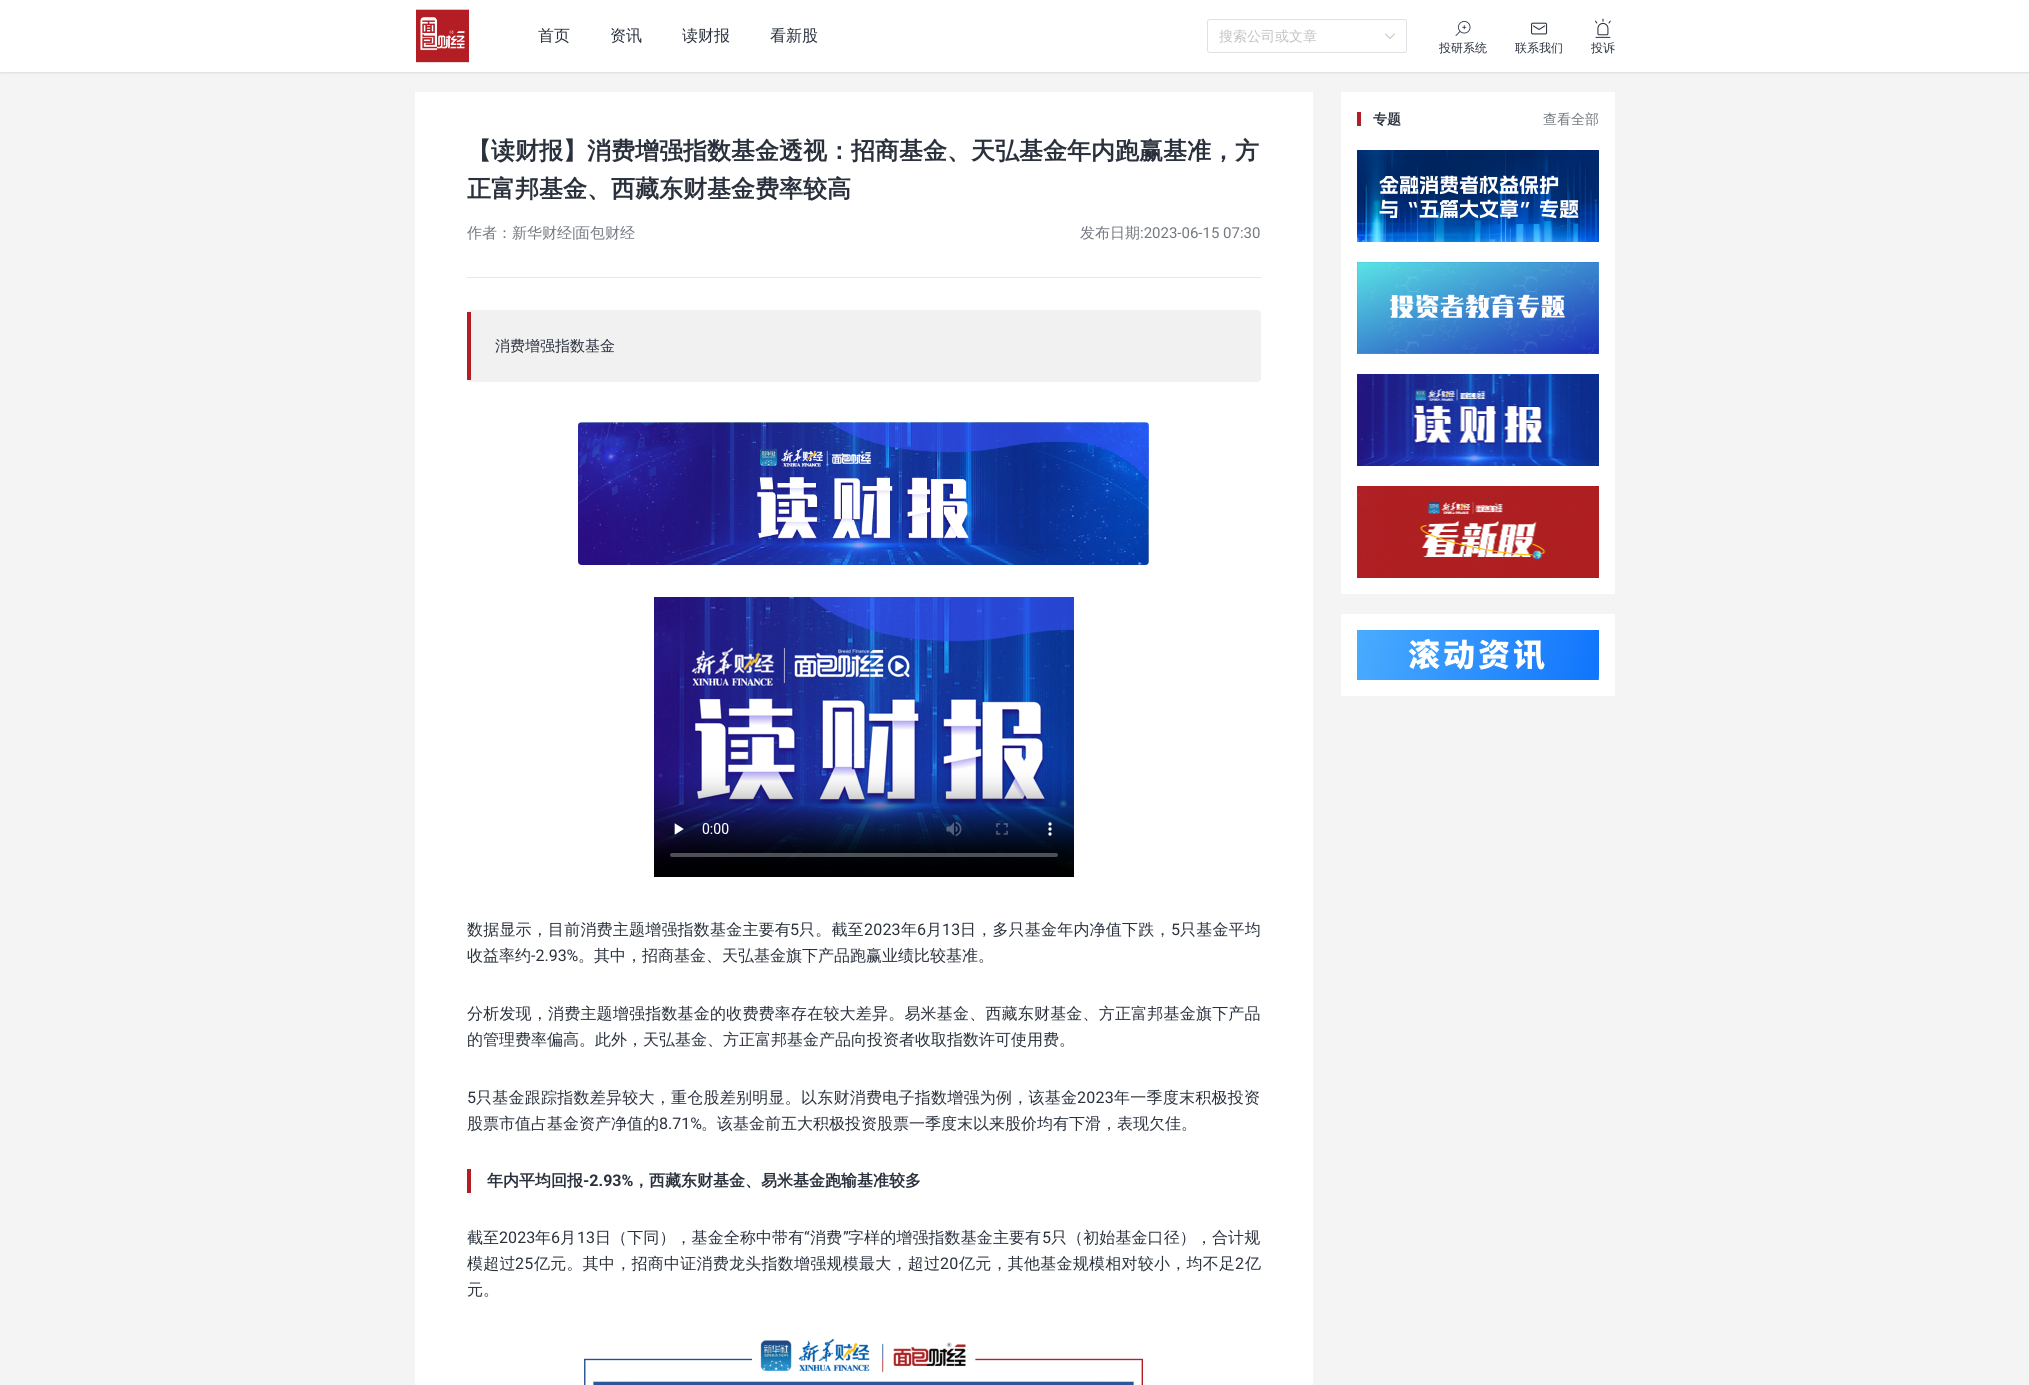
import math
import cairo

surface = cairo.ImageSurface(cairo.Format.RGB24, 2029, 1385)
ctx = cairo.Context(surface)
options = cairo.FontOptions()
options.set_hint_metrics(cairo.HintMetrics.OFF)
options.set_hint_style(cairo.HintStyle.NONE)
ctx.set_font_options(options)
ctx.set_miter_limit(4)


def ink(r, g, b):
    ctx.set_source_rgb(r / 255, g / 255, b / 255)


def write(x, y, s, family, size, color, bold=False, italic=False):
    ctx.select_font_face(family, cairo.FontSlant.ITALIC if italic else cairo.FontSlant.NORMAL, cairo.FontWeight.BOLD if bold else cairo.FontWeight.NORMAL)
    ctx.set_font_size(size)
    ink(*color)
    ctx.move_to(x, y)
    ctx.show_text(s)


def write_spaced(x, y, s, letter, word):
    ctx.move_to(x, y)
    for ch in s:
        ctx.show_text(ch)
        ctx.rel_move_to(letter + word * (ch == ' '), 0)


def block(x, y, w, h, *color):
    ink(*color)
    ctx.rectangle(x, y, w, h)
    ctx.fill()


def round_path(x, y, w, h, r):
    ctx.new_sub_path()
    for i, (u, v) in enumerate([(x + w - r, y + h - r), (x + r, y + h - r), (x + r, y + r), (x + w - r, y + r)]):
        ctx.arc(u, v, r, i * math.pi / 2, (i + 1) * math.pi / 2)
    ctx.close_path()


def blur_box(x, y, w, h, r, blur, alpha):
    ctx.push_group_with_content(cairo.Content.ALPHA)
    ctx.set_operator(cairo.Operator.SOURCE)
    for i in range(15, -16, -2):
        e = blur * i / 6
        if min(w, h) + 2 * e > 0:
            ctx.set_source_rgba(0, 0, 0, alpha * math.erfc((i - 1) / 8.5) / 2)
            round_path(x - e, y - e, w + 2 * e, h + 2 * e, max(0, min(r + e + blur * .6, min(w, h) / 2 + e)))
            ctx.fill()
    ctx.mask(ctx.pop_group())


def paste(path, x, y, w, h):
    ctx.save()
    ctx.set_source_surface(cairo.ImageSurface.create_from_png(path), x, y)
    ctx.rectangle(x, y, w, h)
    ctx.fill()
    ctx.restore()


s1 = dict(family="WenQuanYi Zen Hei Medium", size=16, color=(42, 49, 61))
s2 = dict(family="WenQuanYi Zen Hei Medium", size=14, color=(194, 194, 194))
s3 = dict(family="WenQuanYi Zen Hei Medium", size=12, color=(42, 49, 61))
s4 = dict(family="WenQuanYi Zen Hei", size=14, color=(42, 49, 61), bold=True)
s5 = dict(family="WenQuanYi Zen Hei Medium", size=14, color=(116, 120, 128))
s6 = dict(family="WenQuanYi Zen Hei", size=24, color=(42, 49, 61), bold=True)
s7 = dict(family="WenQuanYi Zen Hei Medium", size=15, color=(116, 120, 128))
s8 = dict(family="Roboto", size=15, color=(116, 120, 128))
s9 = dict(family="WenQuanYi Zen Hei Medium", size=15, color=(42, 49, 61))
s10 = dict(family="Roboto", size=16, color=(42, 49, 61))
s11 = dict(family="WenQuanYi Zen Hei", size=16, color=(42, 49, 61), bold=True)
s12 = dict(family="Roboto", size=16, color=(42, 49, 61), bold=True)

ink(244, 244, 244)
ctx.paint()
ink(0, 0, 0)
blur_box(0, 1, 2029, 72, 0, 1, 0.1)
block(0, 0, 2029, 72, 255, 255, 255)
paste("pic1.png", 416, 9, 53, 54)
write(538, 41, "首页", **s1)
write(610, 41, "资讯", **s1)
write(682, 41, "读财报", **s1)
write(770, 41, "看新股", **s1)
paste("pic2.png", 1385, 33, 10, 6)
round_path(1207.5, 19.5, 199, 33, 2.5)
ink(224, 224, 230)
ctx.set_line_width(1)
ctx.stroke()
write(1219, 41, "搜索公司或文章", **s2)
paste("pic3.png", 1455, 21, 16, 15)
write(1439, 52, "投研系统", **s3)
paste("pic4.png", 1531, 22, 17, 13)
write(1515, 52, "联系我们", **s3)
paste("pic5.png", 1595, 18, 16, 20)
write(1591, 52, "投诉", **s3)
block(1341, 92, 274, 502, 255, 255, 255)
block(1357, 112, 4, 14, 180, 29, 36)
write(1373, 124, "专题", **s4)
write(1543, 124, "查看全部", **s5)
paste("pic6.png", 1357, 150, 242, 92)
paste("pic7.png", 1357, 262, 242, 92)
paste("pic8.png", 1357, 374, 242, 92)
paste("pic9.png", 1357, 486, 242, 92)
block(1341, 614, 274, 82, 255, 255, 255)
paste("pic10.png", 1357, 630, 242, 50)
block(415, 92, 898, 1293, 255, 255, 255)
block(467, 277, 794, 1, 230, 231, 232)
write(467, 159, "【读财报】消费增强指数基金透视：招商基金、天弘基金年内跑赢基准，方", **s6)
write(467, 197, "正富邦基金、西藏东财基金费率较高", **s6)
write(467, 238, "作者：新华财经", **s7)
write(572, 238, "|", **s8)
write(575, 238, "面包财经", **s7)
write(1080, 238, "发布日期", **s7)
write(1140, 238, ":2023-06-15 07:30", **s8)
ink(241, 241, 241)
round_path(467, 310, 794, 72, 4)
ctx.fill()
block(467, 312, 4, 68, 180, 29, 36)
write(495, 351, "消费增强指数基金", **s9)
paste("pic11.png", 578, 422, 571, 143)
paste("pic12.png", 654, 597, 420, 280)
ctx.set_font_size(16)
write_spaced(467, 935, "数据显示，目前消费主题增强指数基金主要有", 0.2, 0)
ctx.select_font_face("Roboto")
write_spaced(790, 935, "5", 0.2, 0)
ctx.select_font_face("WenQuanYi Zen Hei Medium")
write_spaced(799, 935, "只。截至", 0.2, 0)
ctx.select_font_face("Roboto")
write_spaced(864, 935, "2023", 0.2, 0)
ctx.select_font_face("WenQuanYi Zen Hei Medium")
write_spaced(901, 935, "年", 0.2, 0)
ctx.select_font_face("Roboto")
write_spaced(917, 935, "6", 0.2, 0)
ctx.select_font_face("WenQuanYi Zen Hei Medium")
write_spaced(926, 935, "月", 0.2, 0)
ctx.select_font_face("Roboto")
write_spaced(942, 935, "13", 0.2, 0)
ctx.select_font_face("WenQuanYi Zen Hei Medium")
write_spaced(960, 935, "日，多只基金年内净值下跌，", 0.2, 0)
ctx.select_font_face("Roboto")
write_spaced(1171, 935, "5", 0.2, 0)
ctx.select_font_face("WenQuanYi Zen Hei Medium")
write_spaced(1180, 935, "只基金平均", 0.2, 0)
write(467, 961, "收益率约", **s1)
write(531, 961, "-2.93%", **s10)
write(578, 961, "。其中，招商基金、天弘基金旗下产品跑赢业绩比较基准。", **s1)
write_spaced(467, 1019, "分析发现，消费主题增强指数基金的收费费率存在较大差异。易米基金、西藏东财基金、方正富邦基金旗下产品", 0.2, 0)
write(467, 1045, "的管理费率偏高。此外，天弘基金、方正富邦基金产品向投资者收取指数许可使用费。", **s1)
ctx.select_font_face("Roboto")
write_spaced(467, 1103, "5", 0.25, 0)
ctx.select_font_face("WenQuanYi Zen Hei Medium")
write_spaced(476, 1103, "只基金跟踪指数差异较大，重仓股差别明显。以东财消费电子指数增强为例，该基金", 0.25, 0)
ctx.select_font_face("Roboto")
write_spaced(1077, 1103, "2023", 0.25, 0)
ctx.select_font_face("WenQuanYi Zen Hei Medium")
write_spaced(1114, 1103, "年一季度末积极投资", 0.25, 0)
write(467, 1129, "股票市值占基金资产净值的", **s1)
write(659, 1129, "8.71%", **s10)
write(701, 1129, "。该基金前五大积极投资股票一季度末以来股价均有下滑，表现欠佳。", **s1)
block(467, 1169, 4, 24, 180, 29, 36)
write(487, 1186, "年内平均回报", **s11)
write(583, 1186, "-2.93%", **s12)
write(633, 1186, "，西藏东财基金、易米基金跑输基准较多", **s11)
ctx.select_font_face("WenQuanYi Zen Hei Medium")
write_spaced(467, 1243, "截至", 0.1, 0)
ctx.select_font_face("Roboto")
write_spaced(499, 1243, "2023", 0.1, 0)
ctx.select_font_face("WenQuanYi Zen Hei Medium")
write_spaced(535, 1243, "年", 0.1, 0)
ctx.select_font_face("Roboto")
write_spaced(551, 1243, "6", 0.1, 0)
ctx.select_font_face("WenQuanYi Zen Hei Medium")
write_spaced(560, 1243, "月", 0.1, 0)
ctx.select_font_face("Roboto")
write_spaced(577, 1243, "13", 0.1, 0)
ctx.select_font_face("WenQuanYi Zen Hei Medium")
write_spaced(595, 1243, "日（下同），基金全称中带有", 0.1, 0)
ctx.select_font_face("Roboto")
write_spaced(804, 1243, "“", 0.1, 0)
ctx.select_font_face("WenQuanYi Zen Hei Medium")
write_spaced(810, 1243, "消费", 0.1, 0)
ctx.select_font_face("Roboto")
write_spaced(843, 1243, "”", 0.1, 0)
ctx.select_font_face("WenQuanYi Zen Hei Medium")
write_spaced(848, 1243, "字样的增强指数基金主要有", 0.1, 0)
ctx.select_font_face("Roboto")
write_spaced(1042, 1243, "5", 0.1, 0)
ctx.select_font_face("WenQuanYi Zen Hei Medium")
write_spaced(1051, 1243, "只（初始基金口径），合计规", 0.1, 0)
write_spaced(467, 1269, "模超过", 0.25, 0)
ctx.select_font_face("Roboto")
write_spaced(515, 1269, "25", 0.25, 0)
ctx.select_font_face("WenQuanYi Zen Hei Medium")
write_spaced(534, 1269, "亿元。其中，招商中证消费龙头指数增强规模最大，超过", 0.25, 0)
ctx.select_font_face("Roboto")
write_spaced(940, 1269, "20", 0.25, 0)
ctx.select_font_face("WenQuanYi Zen Hei Medium")
write_spaced(959, 1269, "亿元，其他基金规模相对较小，均不足", 0.25, 0)
ctx.select_font_face("Roboto")
write_spaced(1235, 1269, "2", 0.25, 0)
ctx.select_font_face("WenQuanYi Zen Hei Medium")
write_spaced(1245, 1269, "亿", 0.25, 0)
write(467, 1295, "元。", **s1)
paste("pic13.png", 584, 1338, 559, 47)
surface.write_to_png("screenshot.png")
